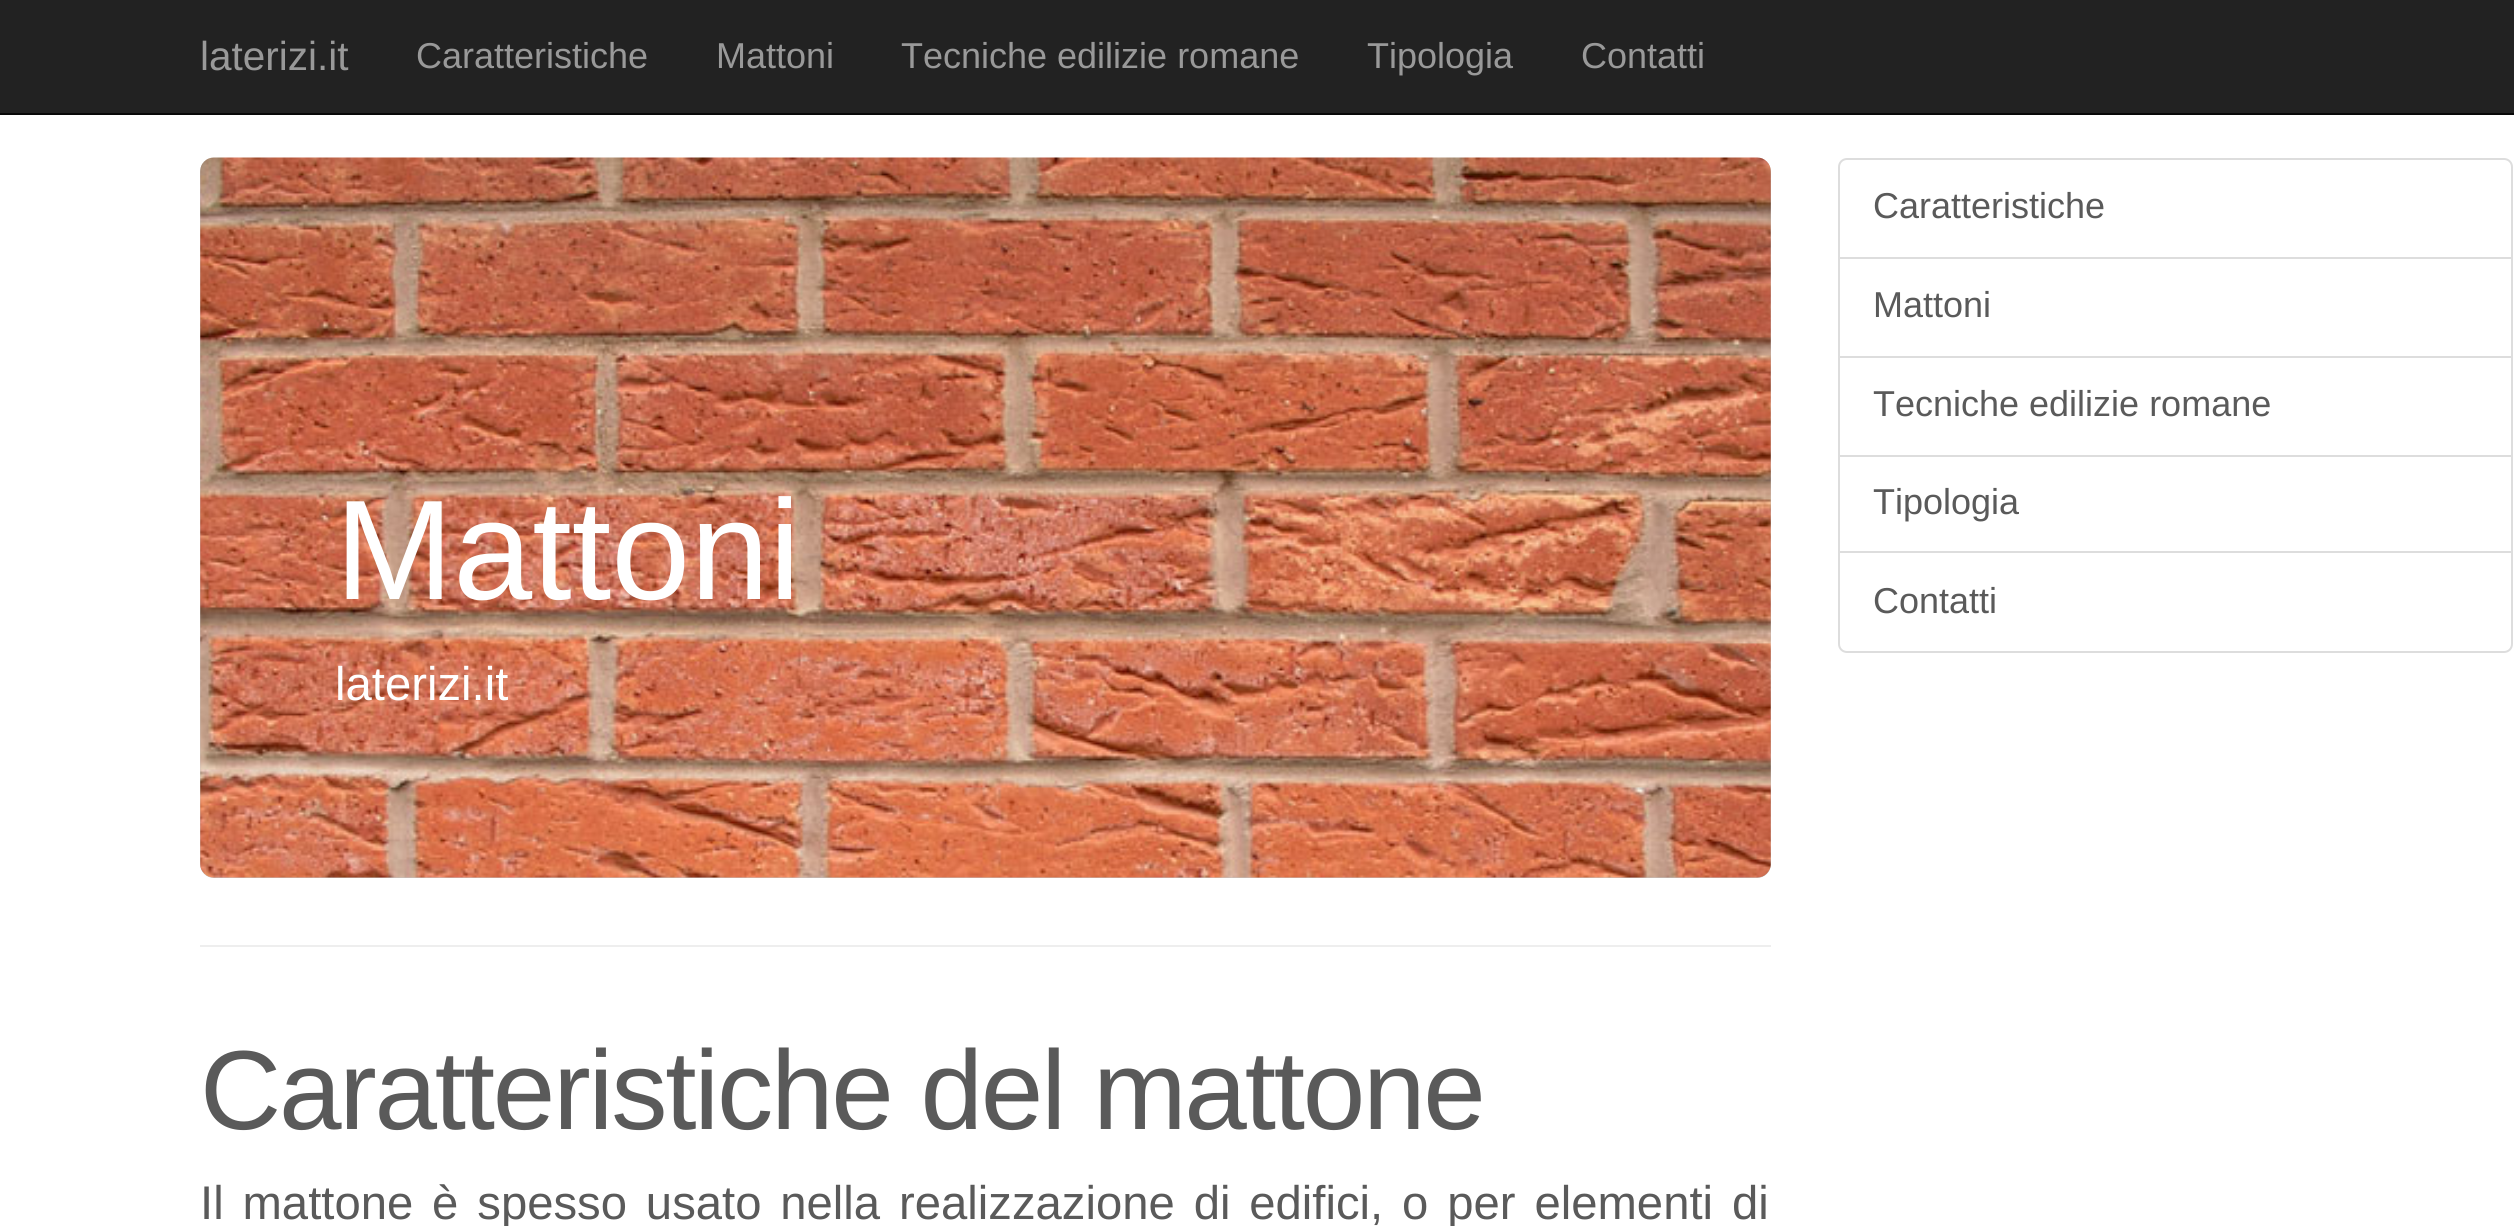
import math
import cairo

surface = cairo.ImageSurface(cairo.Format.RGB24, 2514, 1226)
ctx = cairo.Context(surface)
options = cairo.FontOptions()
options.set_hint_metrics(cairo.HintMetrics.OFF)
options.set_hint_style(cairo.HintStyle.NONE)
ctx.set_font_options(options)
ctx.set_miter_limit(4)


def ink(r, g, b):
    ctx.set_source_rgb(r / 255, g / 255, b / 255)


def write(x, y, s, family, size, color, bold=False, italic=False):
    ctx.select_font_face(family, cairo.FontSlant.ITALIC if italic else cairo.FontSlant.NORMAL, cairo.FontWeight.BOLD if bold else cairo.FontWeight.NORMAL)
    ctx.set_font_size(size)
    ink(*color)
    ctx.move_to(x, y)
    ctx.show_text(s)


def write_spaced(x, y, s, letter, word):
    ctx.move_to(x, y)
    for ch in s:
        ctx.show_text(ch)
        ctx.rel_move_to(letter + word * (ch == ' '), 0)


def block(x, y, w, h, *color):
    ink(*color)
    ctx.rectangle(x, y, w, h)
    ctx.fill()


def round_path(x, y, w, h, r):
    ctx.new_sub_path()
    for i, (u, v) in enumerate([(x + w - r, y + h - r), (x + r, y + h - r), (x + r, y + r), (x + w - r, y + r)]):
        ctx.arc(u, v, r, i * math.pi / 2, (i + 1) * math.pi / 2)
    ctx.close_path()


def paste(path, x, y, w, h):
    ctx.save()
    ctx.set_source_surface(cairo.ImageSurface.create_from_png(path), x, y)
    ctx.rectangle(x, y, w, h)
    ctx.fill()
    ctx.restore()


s1 = dict(family="Liberation Sans", size=40.5, color=(153, 153, 153))
s2 = dict(family="Liberation Sans", size=36, color=(153, 153, 153))
s3 = dict(family="Liberation Sans", size=36, color=(90, 90, 90))
s4 = dict(family="Liberation Sans", size=142, color=(255, 255, 255))
s5 = dict(family="Liberation Sans", size=47.25, color=(255, 255, 255))

ink(255, 255, 255)
ctx.paint()
block(0, 0, 2514, 113, 34, 34, 34)
block(0, 113, 2514, 2, 8, 8, 8)
write(200, 70, "laterizi.it", **s1)
write(416, 68, "Caratteristiche", **s2)
write(716, 68, "Mattoni", **s2)
write(901, 68, "Tecniche edilizie romane", **s2)
write(1367, 68, "Tipologia", **s2)
write(1581, 68, "Contatti", **s2)
ctx.new_path()
ctx.move_to(1847, 159)
ctx.line_to(2504, 159)
ctx.curve_to(2508.5, 159, 2512, 162.5, 2512, 167)
ctx.line_to(2512, 258)
ctx.line_to(1839, 258)
ctx.line_to(1839, 167)
ctx.curve_to(1839, 162.5, 1842.5, 159, 1847, 159)
ctx.close_path()
ink(221, 221, 221)
ctx.stroke()
write(1873, 218, "Caratteristiche", **s3)
ctx.rectangle(1839, 258, 673, 99)
ink(221, 221, 221)
ctx.stroke()
write(1873, 317, "Mattoni", **s3)
ctx.rectangle(1839, 357, 673, 99)
ink(221, 221, 221)
ctx.stroke()
write(1873, 416, "Tecniche edilizie romane", **s3)
ctx.rectangle(1839, 456, 673, 97)
ink(221, 221, 221)
ctx.stroke()
write(1873, 514, "Tipologia", **s3)
ink(255, 255, 255)
ctx.new_path()
ctx.move_to(1839, 552)
ctx.line_to(2512, 552)
ctx.line_to(2512, 644)
ctx.curve_to(2512, 648.5, 2508.5, 652, 2504, 652)
ctx.line_to(1847, 652)
ctx.curve_to(1842.5, 652, 1839, 648.5, 1839, 644)
ctx.close_path()
ctx.fill_preserve()
ink(221, 221, 221)
ctx.stroke()
write(1873, 613, "Contatti", **s3)
ink(195, 195, 195)
round_path(200, 158, 1571, 720, 14)
ctx.fill()
paste("pic1.png", 200, 157, 1571, 721)
write(335, 599, "Mattoni", **s4)
write(335, 700, "laterizi.it", **s5)
block(200, 945, 1571, 2, 238, 238, 238)
ctx.set_font_size(112.5)
ink(90, 90, 90)
write_spaced(200, 1129, "Caratteristiche del mattone", -2.25, 0)
ctx.set_font_size(47.25)
write_spaced(200, 1219, "Il mattone è spesso usato nella realizzazione di edifici, o per elementi di", 0, 5.75)
surface.write_to_png("screenshot.png")
